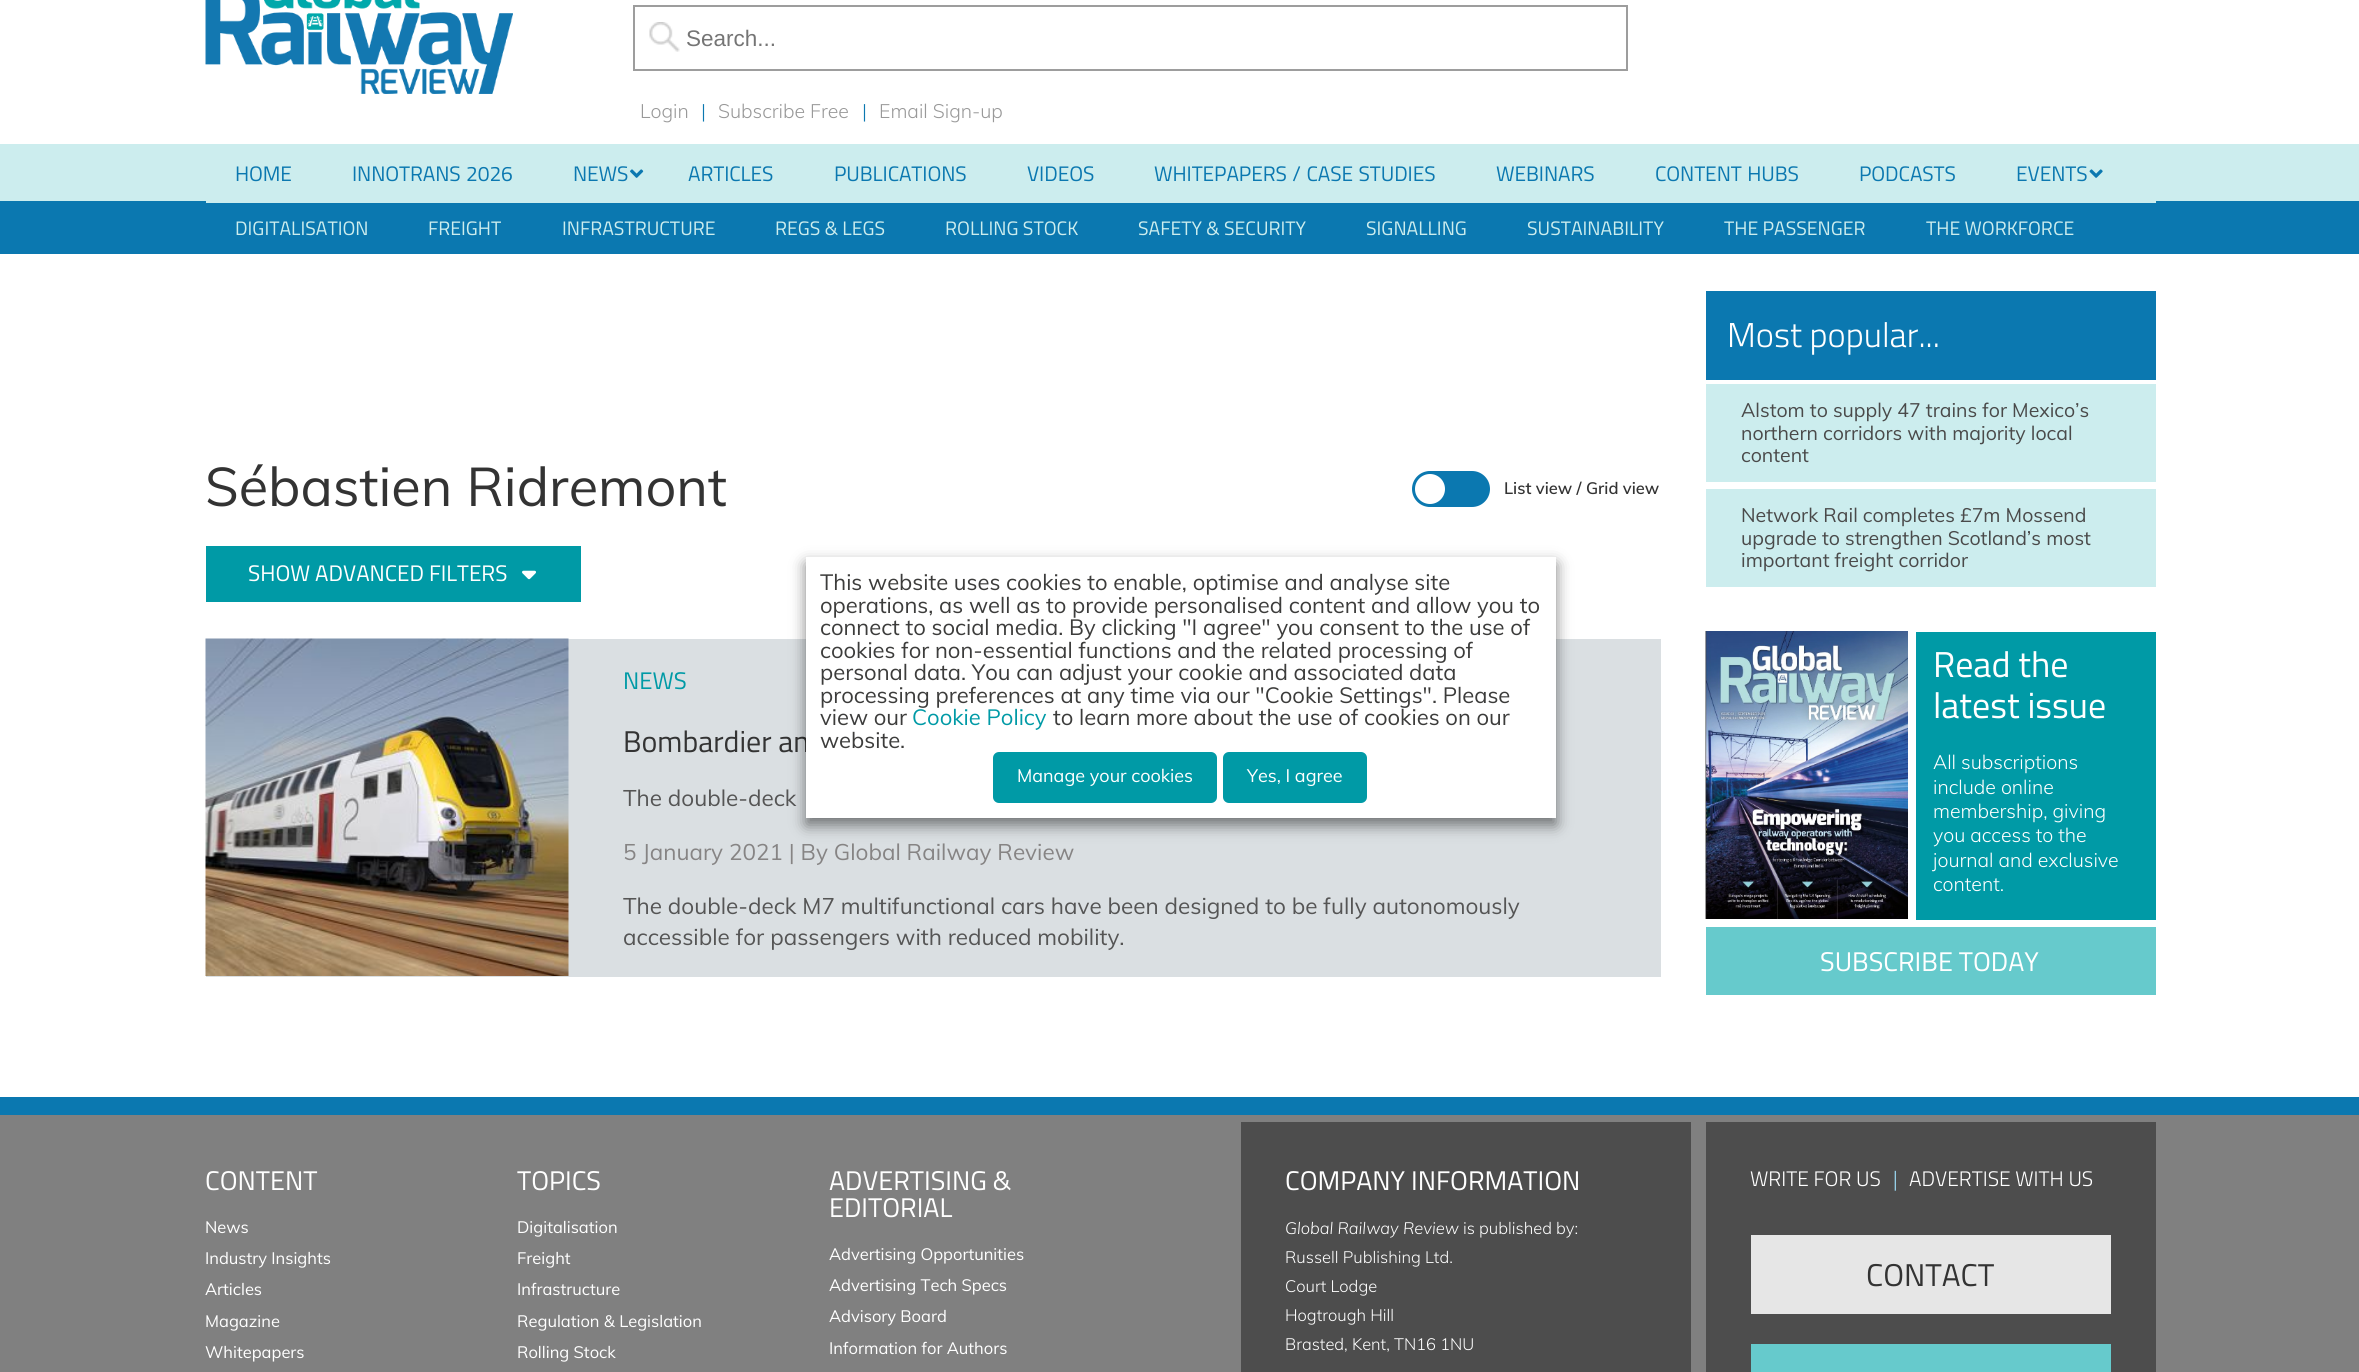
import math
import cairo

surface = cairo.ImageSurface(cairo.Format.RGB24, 2359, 1372)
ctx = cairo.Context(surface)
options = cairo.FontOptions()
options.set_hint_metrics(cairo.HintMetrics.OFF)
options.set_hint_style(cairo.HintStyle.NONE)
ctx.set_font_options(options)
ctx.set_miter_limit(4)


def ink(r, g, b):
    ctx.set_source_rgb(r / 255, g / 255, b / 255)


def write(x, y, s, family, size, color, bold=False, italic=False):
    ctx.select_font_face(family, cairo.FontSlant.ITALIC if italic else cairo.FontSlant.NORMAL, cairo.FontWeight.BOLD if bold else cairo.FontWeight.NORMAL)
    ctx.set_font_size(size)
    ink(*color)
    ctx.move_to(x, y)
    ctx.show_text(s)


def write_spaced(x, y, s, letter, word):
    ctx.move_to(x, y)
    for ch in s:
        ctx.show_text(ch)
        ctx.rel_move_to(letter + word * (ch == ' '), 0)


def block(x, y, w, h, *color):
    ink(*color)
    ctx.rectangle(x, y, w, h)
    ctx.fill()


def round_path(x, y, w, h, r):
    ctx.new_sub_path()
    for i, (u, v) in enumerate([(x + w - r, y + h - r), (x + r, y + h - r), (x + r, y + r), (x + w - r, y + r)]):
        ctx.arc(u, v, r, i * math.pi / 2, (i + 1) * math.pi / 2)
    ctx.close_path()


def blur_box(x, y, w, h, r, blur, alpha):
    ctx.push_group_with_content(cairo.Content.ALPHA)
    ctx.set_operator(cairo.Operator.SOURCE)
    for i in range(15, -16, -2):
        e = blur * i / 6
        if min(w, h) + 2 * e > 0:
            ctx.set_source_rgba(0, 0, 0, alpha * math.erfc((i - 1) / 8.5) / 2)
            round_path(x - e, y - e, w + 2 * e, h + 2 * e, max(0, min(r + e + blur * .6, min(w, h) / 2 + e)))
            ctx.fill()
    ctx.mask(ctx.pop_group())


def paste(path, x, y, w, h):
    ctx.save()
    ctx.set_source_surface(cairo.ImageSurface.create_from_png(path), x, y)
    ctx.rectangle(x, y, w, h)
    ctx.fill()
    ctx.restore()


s1 = dict(family="Liberation Sans", size=22.5, color=(117, 117, 117))
s2 = dict(family="Muli Light", size=19.5, color=(153, 153, 153))
s3 = dict(family="Muli Light", size=19.5, color=(11, 120, 176))
s4 = dict(family="Titillium Web", size=19.5, color=(204, 237, 238))
s5 = dict(family="Muli", size=54, color=(51, 51, 51))
s6 = dict(family="Muli SemiBold", size=16.5, color=(51, 51, 51))
s7 = dict(family="Titillium Web", size=22.5, color=(255, 255, 255))
s8 = dict(family="Titillium Web", size=24, color=(0, 154, 166))
s9 = dict(family="Titillium Web", size=30, color=(51, 51, 51))
s10 = dict(family="Muli", size=22.5, color=(85, 85, 85))
s11 = dict(family="Muli", size=22.5, color=(134, 132, 132))
s12 = dict(family="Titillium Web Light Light", size=34.5, color=(255, 255, 255))
s13 = dict(family="Muli", size=19.5, color=(74, 74, 74))
s14 = dict(family="Titillium Web", size=36, color=(255, 255, 255))
s15 = dict(family="Muli Light", size=19.5, color=(255, 255, 255))
s16 = dict(family="Titillium Web", size=27, color=(255, 255, 255))
s17 = dict(family="Muli", size=22, color=(60, 60, 59))
s18 = dict(family="Muli", size=22, color=(0, 154, 166))
s19 = dict(family="Muli", size=18, color=(255, 255, 255))
s20 = dict(family="Muli", size=16.5, color=(255, 255, 255))
s21 = dict(family="Muli Light", size=16.5, color=(255, 255, 255), italic=True)
s22 = dict(family="Muli Light", size=16.5, color=(255, 255, 255))
s23 = dict(family="Titillium Web Light Light", size=21, color=(255, 255, 255))
s24 = dict(family="Titillium Web Light Light", size=21, color=(153, 214, 239))
s25 = dict(family="Titillium Web", size=31.5, color=(51, 51, 51))

ink(255, 255, 255)
ctx.paint()
paste("pic1.png", 205, 0, 308, 94)
paste("pic2.png", 649, 22, 31, 30)
ctx.rectangle(634, 6, 993, 64)
ink(157, 157, 157)
ctx.stroke()
write(686, 46, "Search...", **s1)
write(640, 118, "Login", **s2)
write(701, 118, "|", **s3)
write(718, 118, "Subscribe Free", **s2)
write(862, 118, "|", **s3)
write(879, 118, "Email Sign-up", **s2)
block(0, 144, 2359, 57, 204, 237, 238)
block(0, 201, 2359, 53, 11, 120, 176)
block(206, 201, 1950, 2, 204, 237, 238)
ctx.select_font_face("Titillium Web")
ctx.set_font_size(21)
ink(11, 120, 176)
write_spaced(235, 181, "HOME", -0.1, 0)
write_spaced(352, 181, "INNOTRANS 2026", -0.1, 1)
write_spaced(573, 181, "NEWS", -0.1, 0)
paste("pic3.png", 630, 169, 14, 9)
write_spaced(688, 181, "ARTICLES", -0.1, 0)
write_spaced(834, 181, "PUBLICATIONS", -0.1, 0)
write_spaced(1027, 181, "VIDEOS", -0.1, 0)
write_spaced(1154, 181, "WHITEPAPERS / CASE STUDIES", -0.1, 1)
write_spaced(1496, 181, "WEBINARS", -0.1, 0)
write_spaced(1655, 181, "CONTENT HUBS", -0.1, 1)
write_spaced(1859, 181, "PODCASTS", -0.1, 0)
write_spaced(2016, 181, "EVENTS", -0.1, 0)
paste("pic4.png", 2089, 169, 14, 9)
write(235, 235, "DIGITALISATION", **s4)
write(428, 235, "FREIGHT", **s4)
write(562, 235, "INFRASTRUCTURE", **s4)
write(775, 235, "REGS & LEGS", **s4)
write(945, 235, "ROLLING STOCK", **s4)
write(1138, 235, "SAFETY & SECURITY", **s4)
write(1366, 235, "SIGNALLING", **s4)
write(1527, 235, "SUSTAINABILITY", **s4)
write(1724, 235, "THE PASSENGER", **s4)
write(1926, 235, "THE WORKFORCE", **s4)
write(205, 506, "Sébastien Ridremont", **s5)
ink(11, 120, 176)
round_path(1416.5, 472.5, 72, 33, 16.5)
ctx.fill_preserve()
ctx.set_line_width(3)
ctx.stroke()
ink(255, 255, 255)
ctx.arc(1430, 489, 16.5, 0, 2 * math.pi)
ctx.fill_preserve()
ink(11, 120, 176)
ctx.stroke()
write(1504, 494, "List view / Grid view", **s6)
block(206, 546, 375, 56, 0, 154, 166)
write(248, 581, "SHOW ADVANCED FILTERS", **s7)
paste("pic5.png", 522, 570, 14, 10)
block(206, 639, 1455, 338, 218, 223, 226)
paste("pic6.png", 205, 638, 364, 338)
write(623, 689, "NEWS", **s8)
write(623, 752, "Bombardier an", **s9)
write(623, 806, "The double-deck", **s10)
write(623, 860, "5 January 2021 | By Global Railway Review", **s11)
write(623, 914, "The double-deck M7 multifunctional cars have been designed to be fully autonomously", **s10)
write(623, 945, "accessible for passengers with reduced mobility.", **s10)
block(1706, 291, 450, 89, 11, 120, 176)
write(1727, 347, "Most popular...", **s12)
block(1706, 384, 450, 98, 204, 237, 238)
write(1741, 417, "Alstom to supply 47 trains for Mexico’s", **s13)
write(1741, 440, "northern corridors with majority local", **s13)
write(1741, 462, "content", **s13)
block(1706, 489, 450, 98, 204, 237, 238)
write(1741, 522, "Network Rail completes £7m Mossend", **s13)
write(1741, 545, "upgrade to strengthen Scotland’s most", **s13)
write(1741, 567, "important freight corridor", **s13)
paste("pic7.png", 1705, 631, 203, 288)
block(1916, 632, 240, 288, 0, 154, 166)
write(1933, 677, "Read the", **s14)
write(1933, 718, "latest issue", **s14)
write(1933, 769, "All subscriptions", **s15)
write(1933, 794, "include online", **s15)
write(1933, 818, "membership, giving", **s15)
write(1933, 842, "you access to the", **s15)
write(1933, 867, "journal and exclusive", **s15)
write(1933, 891, "content.", **s15)
block(1706, 927, 450, 68, 102, 202, 204)
write(1820, 971, "SUBSCRIBE TODAY", **s16)
ink(0, 0, 0)
blur_box(806, 564, 750, 261, 0, 7.5, 0.5)
block(806, 557, 750, 261, 255, 255, 255)
write(820, 590, "This website uses cookies to enable, optimise and analyse site", **s17)
write(820, 613, "operations, as well as to provide personalised content and allow you to", **s17)
write(820, 635, "connect to social media. By clicking \"I agree\" you consent to the use of", **s17)
write(820, 658, "cookies for non-essential functions and the related processing of", **s17)
write(820, 680, "personal data. You can adjust your cookie and associated data", **s17)
write(820, 703, "processing preferences at any time via our \"Cookie Settings\". Please", **s17)
write(820, 725, "view our", **s17)
write(912, 725, "Cookie Policy", **s18)
write(1053, 725, "to learn more about the use of cookies on our", **s17)
write(820, 748, "website.", **s17)
ink(0, 154, 166)
round_path(993, 752, 224, 51, 6)
ctx.fill()
write(1017, 782, "Manage your cookies", **s19)
ink(0, 154, 166)
round_path(1223, 752, 144, 51, 6)
ctx.fill()
write(1247, 782, "Yes, I agree", **s19)
block(0, 1115, 2359, 257, 128, 128, 128)
block(0, 1097, 2359, 18, 11, 120, 176)
write(205, 1190, "CONTENT", **s16)
write(205, 1233, "News", **s20)
write(205, 1264, "Industry Insights", **s20)
write(205, 1295, "Articles", **s20)
write(205, 1327, "Magazine", **s20)
write(205, 1358, "Whitepapers", **s20)
write(517, 1190, "TOPICS", **s16)
write(517, 1233, "Digitalisation", **s20)
write(517, 1264, "Freight", **s20)
write(517, 1295, "Infrastructure", **s20)
write(517, 1327, "Regulation & Legislation", **s20)
write(517, 1358, "Rolling Stock", **s20)
write(829, 1190, "ADVERTISING &", **s16)
write(829, 1217, "EDITORIAL", **s16)
write(829, 1260, "Advertising Opportunities", **s20)
write(829, 1291, "Advertising Tech Specs", **s20)
write(829, 1322, "Advisory Board", **s20)
write(829, 1354, "Information for Authors", **s20)
block(1241, 1122, 450, 250, 77, 77, 77)
write(1285, 1190, "COMPANY INFORMATION", **s16)
write(1285, 1234, "Global Railway Review", **s21)
write(1463, 1234, "is published by:", **s22)
write(1285, 1263, "Russell Publishing Ltd.", **s22)
write(1285, 1292, "Court Lodge", **s22)
write(1285, 1321, "Hogtrough Hill", **s22)
write(1285, 1350, "Brasted, Kent, TN16 1NU", **s22)
block(1706, 1122, 450, 250, 77, 77, 77)
write(1750, 1186, "WRITE FOR US", **s23)
write(1893, 1186, "|", **s24)
write(1909, 1186, "ADVERTISE WITH US", **s23)
block(1751, 1235, 360, 79, 230, 230, 230)
write(1866, 1286, "CONTACT", **s25)
block(1751, 1344, 360, 28, 102, 202, 204)
surface.write_to_png("screenshot.png")
